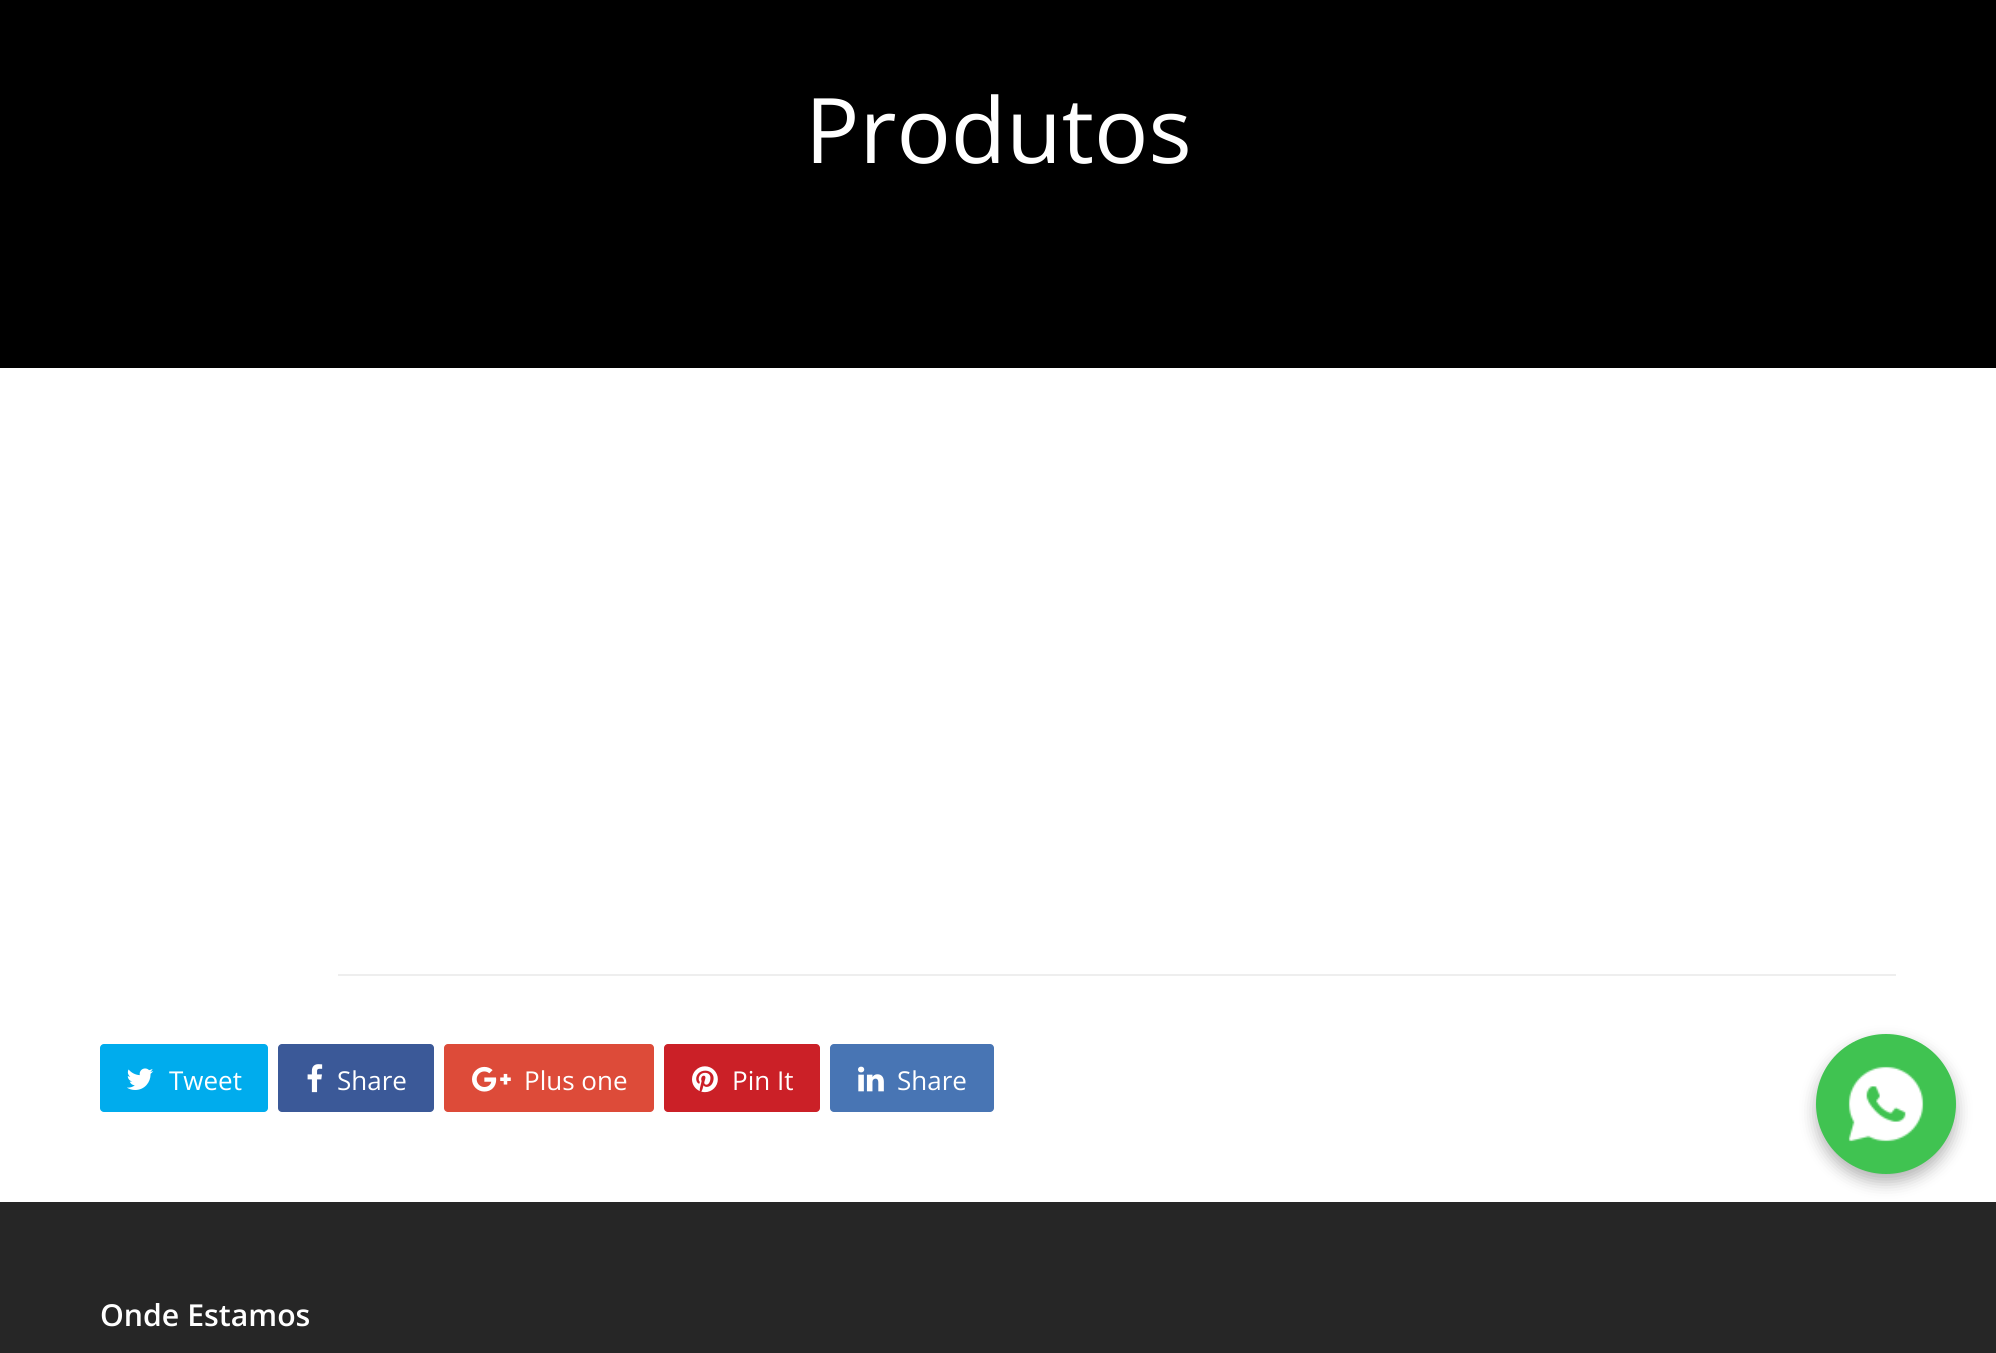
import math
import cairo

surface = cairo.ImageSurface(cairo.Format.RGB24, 1996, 1353)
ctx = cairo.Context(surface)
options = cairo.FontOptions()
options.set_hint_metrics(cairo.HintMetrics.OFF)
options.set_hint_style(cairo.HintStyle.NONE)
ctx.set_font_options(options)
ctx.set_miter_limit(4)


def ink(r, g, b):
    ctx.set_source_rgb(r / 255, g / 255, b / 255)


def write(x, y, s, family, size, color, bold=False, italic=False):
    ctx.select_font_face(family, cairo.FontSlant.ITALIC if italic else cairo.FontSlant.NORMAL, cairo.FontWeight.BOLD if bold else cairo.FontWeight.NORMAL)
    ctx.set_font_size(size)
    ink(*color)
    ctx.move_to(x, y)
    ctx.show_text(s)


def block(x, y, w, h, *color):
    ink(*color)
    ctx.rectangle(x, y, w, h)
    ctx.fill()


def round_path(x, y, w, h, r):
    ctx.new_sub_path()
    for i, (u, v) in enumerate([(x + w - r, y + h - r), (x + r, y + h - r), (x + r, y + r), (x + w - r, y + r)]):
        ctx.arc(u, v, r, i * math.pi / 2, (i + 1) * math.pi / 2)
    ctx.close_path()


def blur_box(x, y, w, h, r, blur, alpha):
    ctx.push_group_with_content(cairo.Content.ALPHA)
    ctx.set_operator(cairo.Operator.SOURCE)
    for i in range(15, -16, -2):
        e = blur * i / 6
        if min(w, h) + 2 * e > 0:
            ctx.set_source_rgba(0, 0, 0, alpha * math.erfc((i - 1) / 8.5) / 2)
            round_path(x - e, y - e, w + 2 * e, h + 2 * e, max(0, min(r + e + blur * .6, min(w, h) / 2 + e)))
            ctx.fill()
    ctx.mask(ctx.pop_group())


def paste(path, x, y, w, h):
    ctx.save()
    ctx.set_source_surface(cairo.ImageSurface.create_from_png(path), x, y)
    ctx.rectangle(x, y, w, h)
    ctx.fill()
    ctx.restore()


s1 = dict(family="Open Sans", size=90.5, color=(255, 255, 255))
s2 = dict(family="Open Sans", size=26, color=(255, 255, 255))
s3 = dict(family="Open Sans SemiBold", size=30.25, color=(255, 255, 255))

ink(255, 255, 255)
ctx.paint()
block(0, 0, 1996, 368, 0, 0, 0)
write(805, 163, "Produtos", **s1)
block(338, 974, 1558, 2, 238, 238, 238)
ink(0, 172, 237)
round_path(100, 1044, 168, 68, 4)
ctx.fill()
paste("pic1.png", 127, 1068, 27, 22)
write(169, 1090, "Tweet", **s2)
ink(59, 89, 152)
round_path(278, 1044, 156, 68, 4)
ctx.fill()
paste("pic2.png", 307, 1064, 16, 29)
write(337, 1090, "Share", **s2)
ink(221, 75, 57)
round_path(444, 1044, 210, 68, 4)
ctx.fill()
paste("pic3.png", 472, 1066, 39, 26)
write(524, 1090, "Plus one", **s2)
ink(203, 32, 39)
round_path(664, 1044, 156, 68, 4)
ctx.fill()
paste("pic4.png", 692, 1066, 26, 27)
write(732, 1090, "Pin It", **s2)
ink(72, 117, 180)
round_path(830, 1044, 164, 68, 4)
ctx.fill()
paste("pic5.png", 858, 1066, 26, 26)
write(897, 1090, "Share", **s2)
block(0, 1202, 1996, 151, 38, 38, 38)
write(100, 1326, "Onde Estamos", **s3)
ink(0, 0, 0)
blur_box(1816, 1042, 140, 140, 70, 8, 0.3)
ink(64, 195, 81)
ctx.arc(1886, 1104, 70, 0, 2 * math.pi)
ctx.fill()
paste("pic6.png", 1848, 1066, 76, 76)
surface.write_to_png("screenshot.png")
